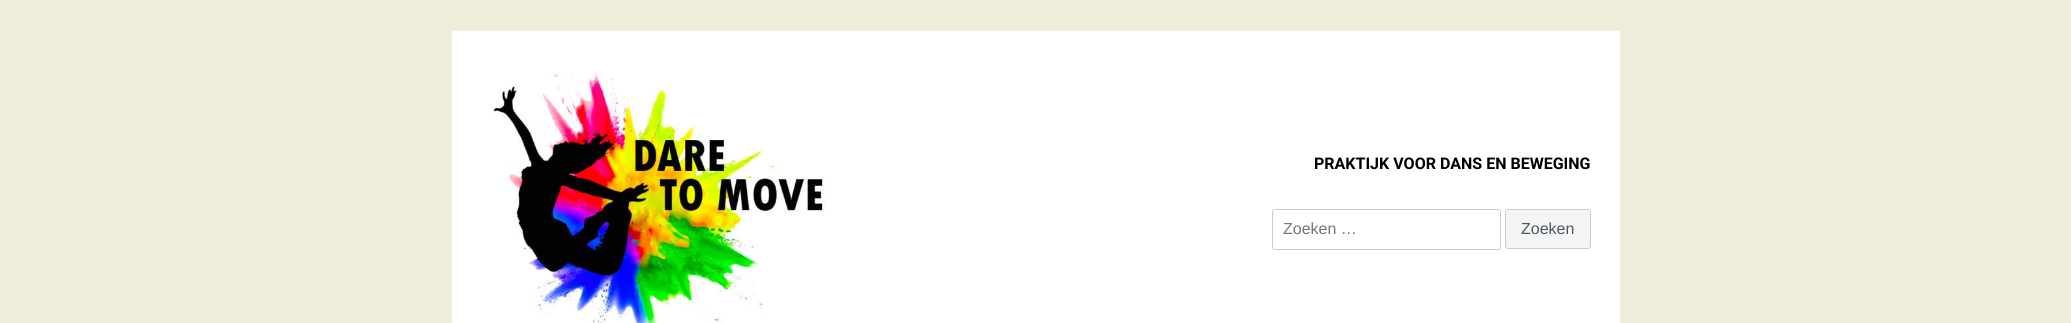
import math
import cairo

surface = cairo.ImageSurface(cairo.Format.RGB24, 2071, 323)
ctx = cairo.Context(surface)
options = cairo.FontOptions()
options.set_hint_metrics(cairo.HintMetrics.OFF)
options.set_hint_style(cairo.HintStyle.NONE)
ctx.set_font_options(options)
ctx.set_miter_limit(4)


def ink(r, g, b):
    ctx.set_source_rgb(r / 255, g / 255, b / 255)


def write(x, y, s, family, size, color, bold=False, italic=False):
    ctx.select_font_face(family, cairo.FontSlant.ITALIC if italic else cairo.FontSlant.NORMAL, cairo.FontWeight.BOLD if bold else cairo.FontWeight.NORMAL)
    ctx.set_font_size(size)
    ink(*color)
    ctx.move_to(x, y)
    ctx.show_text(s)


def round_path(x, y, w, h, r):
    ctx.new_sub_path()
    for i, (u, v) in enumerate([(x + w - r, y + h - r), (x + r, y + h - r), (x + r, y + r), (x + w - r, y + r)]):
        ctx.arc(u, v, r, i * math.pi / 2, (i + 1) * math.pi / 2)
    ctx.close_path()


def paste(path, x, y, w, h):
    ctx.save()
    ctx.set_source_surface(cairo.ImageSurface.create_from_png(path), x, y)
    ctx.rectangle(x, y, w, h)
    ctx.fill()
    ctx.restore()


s1 = dict(family="Roboto", size=16, color=(0, 0, 0), bold=True)
s2 = dict(family="Liberation Sans", size=16, color=(117, 117, 117))
s3 = dict(family="Liberation Sans", size=16, color=(80, 87, 95))

ink(237, 237, 218)
ctx.paint()
ink(255, 255, 255)
ctx.rectangle(451.5, 30.5, 1169, 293)
ctx.fill_preserve()
ink(237, 237, 237)
ctx.set_line_width(1)
ctx.stroke()
paste("pic1.png", 492, 72, 334, 251)
write(1314, 169, "PRAKTIJK VOOR DANS EN BEWEGING", **s1)
round_path(1272.5, 209.5, 228, 40, 2.5)
ink(201, 203, 206)
ctx.stroke()
write(1283, 234, "Zoeken …", **s2)
ink(244, 245, 245)
round_path(1505, 209, 86, 40, 3)
ctx.fill()
round_path(1505.5, 209.5, 85, 39, 2.5)
ctx.set_source_rgba(0.153, 0.188, 0.224, 0.2)
ctx.stroke()
write(1521, 234, "Zoeken", **s3)
surface.write_to_png("screenshot.png")
